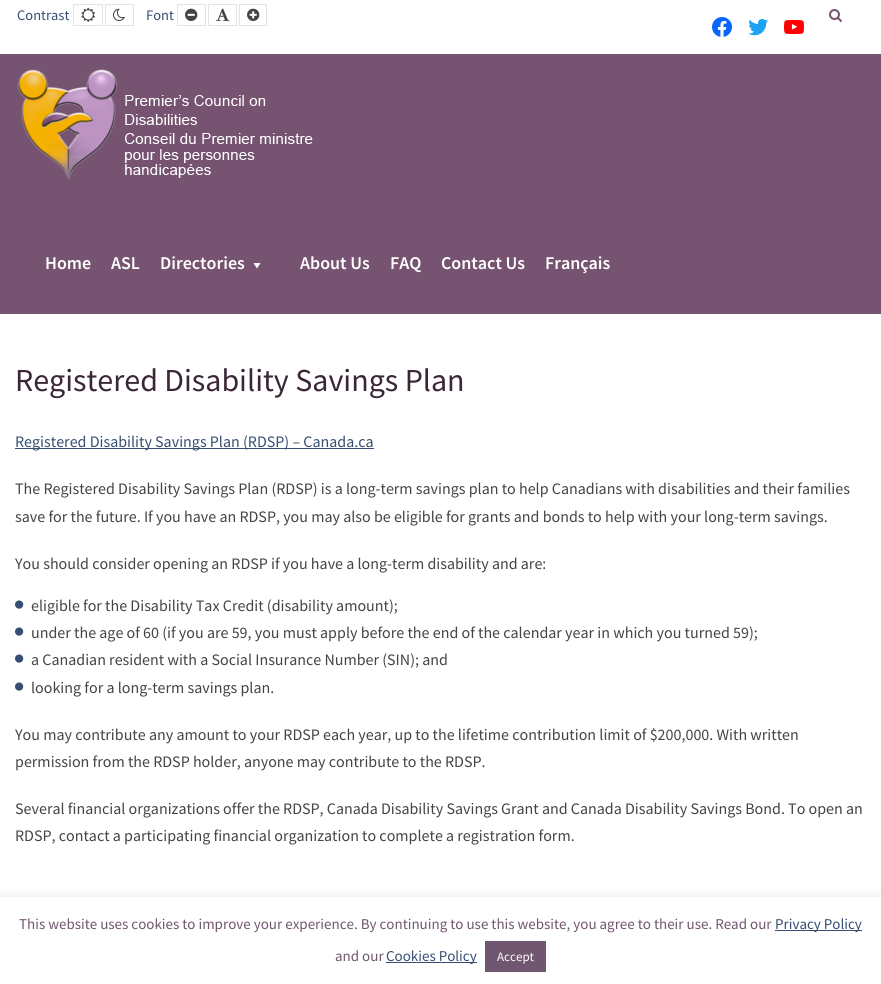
import math
import cairo

surface = cairo.ImageSurface(cairo.Format.RGB24, 881, 984)
ctx = cairo.Context(surface)
options = cairo.FontOptions()
options.set_hint_metrics(cairo.HintMetrics.OFF)
options.set_hint_style(cairo.HintStyle.NONE)
ctx.set_font_options(options)
ctx.set_miter_limit(4)


def ink(r, g, b):
    ctx.set_source_rgb(r / 255, g / 255, b / 255)


def write(x, y, s, family, size, color, bold=False, italic=False):
    ctx.select_font_face(family, cairo.FontSlant.ITALIC if italic else cairo.FontSlant.NORMAL, cairo.FontWeight.BOLD if bold else cairo.FontWeight.NORMAL)
    ctx.set_font_size(size)
    ink(*color)
    ctx.move_to(x, y)
    ctx.show_text(s)


def block(x, y, w, h, *color):
    ink(*color)
    ctx.rectangle(x, y, w, h)
    ctx.fill()


def round_path(x, y, w, h, r):
    ctx.new_sub_path()
    for i, (u, v) in enumerate([(x + w - r, y + h - r), (x + r, y + h - r), (x + r, y + r), (x + w - r, y + r)]):
        ctx.arc(u, v, r, i * math.pi / 2, (i + 1) * math.pi / 2)
    ctx.close_path()


def blur_box(x, y, w, h, r, blur, alpha):
    ctx.push_group_with_content(cairo.Content.ALPHA)
    ctx.set_operator(cairo.Operator.SOURCE)
    for i in range(15, -16, -2):
        e = blur * i / 6
        if min(w, h) + 2 * e > 0:
            ctx.set_source_rgba(0, 0, 0, alpha * math.erfc((i - 1) / 8.5) / 2)
            round_path(x - e, y - e, w + 2 * e, h + 2 * e, max(0, min(r + e + blur * .6, min(w, h) / 2 + e)))
            ctx.fill()
    ctx.mask(ctx.pop_group())


def paste(path, x, y, w, h):
    ctx.save()
    ctx.set_source_surface(cairo.ImageSurface.create_from_png(path), x, y)
    ctx.rectangle(x, y, w, h)
    ctx.fill()
    ctx.restore()


s1 = dict(family="Source Sans Pro", size=14.5, color=(54, 78, 114))
s2 = dict(family="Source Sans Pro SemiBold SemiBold", size=18, color=(255, 255, 255))
s3 = dict(family="Source Sans Pro", size=32, color=(58, 38, 55))
s4 = dict(family="Source Sans Pro", size=16, color=(54, 78, 114))
s5 = dict(family="Source Sans Pro", size=16, color=(68, 68, 68))
s6 = dict(family="Source Sans Pro", size=15, color=(113, 86, 111))
s7 = dict(family="Source Sans Pro", size=15, color=(54, 78, 114))
s8 = dict(family="Source Sans Pro", size=13, color=(255, 255, 255))

ink(255, 255, 255)
ctx.paint()
write(17, 20, "Contrast", **s1)
ctx.rectangle(73.5, 4.5, 29, 21)
ink(227, 227, 227)
ctx.set_line_width(1)
ctx.stroke()
paste("pic1.png", 81, 7, 14, 15)
ctx.rectangle(105.5, 4.5, 28, 21)
ctx.stroke()
paste("pic2.png", 113, 8, 12, 13)
write(146, 20, "Font", **s1)
ctx.rectangle(177.5, 4.5, 28, 21)
ink(227, 227, 227)
ctx.stroke()
paste("pic3.png", 185, 8, 13, 13)
ctx.rectangle(208.5, 4.5, 28, 21)
ctx.stroke()
paste("pic4.png", 216, 8, 14, 13)
ctx.rectangle(239.5, 4.5, 27, 21)
ctx.stroke()
paste("pic5.png", 247, 8, 13, 13)
paste("pic6.png", 829, 9, 13, 13)
paste("pic7.png", 712, 17, 20, 20)
paste("pic8.png", 748, 19, 20, 17)
paste("pic9.png", 784, 20, 20, 14)
block(0, 54, 881, 260, 118, 84, 113)
paste("pic10.png", 17, 69, 296, 111)
write(45, 269, "Home", **s2)
write(111, 269, "ASL", **s2)
write(160, 269, "Directories", **s2)
ctx.new_path()
ctx.move_to(260.5, 263)
ctx.line_to(257, 268.5)
ctx.line_to(253.5, 263)
ctx.close_path()
ctx.fill()
write(300, 269, "About Us", **s2)
write(390, 269, "FAQ", **s2)
write(441, 269, "Contact Us", **s2)
write(545, 269, "Français", **s2)
write(15, 391, "Registered Disability Savings Plan", **s3)
block(15, 448, 359, 1, 54, 78, 114)
write(15, 447, "Registered Disability Savings Plan (RDSP) – Canada.ca", **s4)
write(15, 494, "The Registered Disability Savings Plan (RDSP) is a long-term savings plan to help Canadians with disabilities and their families", **s5)
write(15, 522, "save for the future. If you have an RDSP, you may also be eligible for grants and bonds to help with your long-term savings.", **s5)
write(15, 569, "You should consider opening an RDSP if you have a long-term disability and are:", **s5)
paste("pic11.png", 15, 600, 9, 9)
write(31, 611, "eligible for the Disability Tax Credit (disability amount);", **s5)
paste("pic11.png", 15, 627, 9, 9)
write(31, 638, "under the age of 60 (if you are 59, you must apply before the end of the calendar year in which you turned 59);", **s5)
paste("pic11.png", 15, 654, 9, 9)
write(31, 665, "a Canadian resident with a Social Insurance Number (SIN); and", **s5)
paste("pic11.png", 15, 682, 9, 9)
write(31, 693, "looking for a long-term savings plan.", **s5)
write(15, 740, "You may contribute any amount to your RDSP each year, up to the lifetime contribution limit of $200,000. With written", **s5)
write(15, 767, "permission from the RDSP holder, anyone may contribute to the RDSP.", **s5)
write(15, 814, "Several financial organizations offer the RDSP, Canada Disability Savings Grant and Canada Disability Savings Bond. To open an", **s5)
write(15, 841, "RDSP, contact a participating financial organization to complete a registration form.", **s5)
ink(172, 171, 171)
blur_box(0, 896, 881, 87, 0, 5, 0.3)
block(0, 897, 881, 87, 255, 255, 255)
write(19, 929, "This website uses cookies to improve your experience. By continuing to use this website, you agree to their use. Read our", **s6)
block(775, 930, 87, 1, 54, 78, 114)
write(775, 929, "Privacy Policy", **s7)
write(335, 961, "and our", **s6)
block(386, 962, 91, 1, 54, 78, 114)
write(386, 961, "Cookies Policy", **s7)
block(485, 941, 61, 31, 113, 86, 111)
write(497, 961, "Accept", **s8)
surface.write_to_png("screenshot.png")
